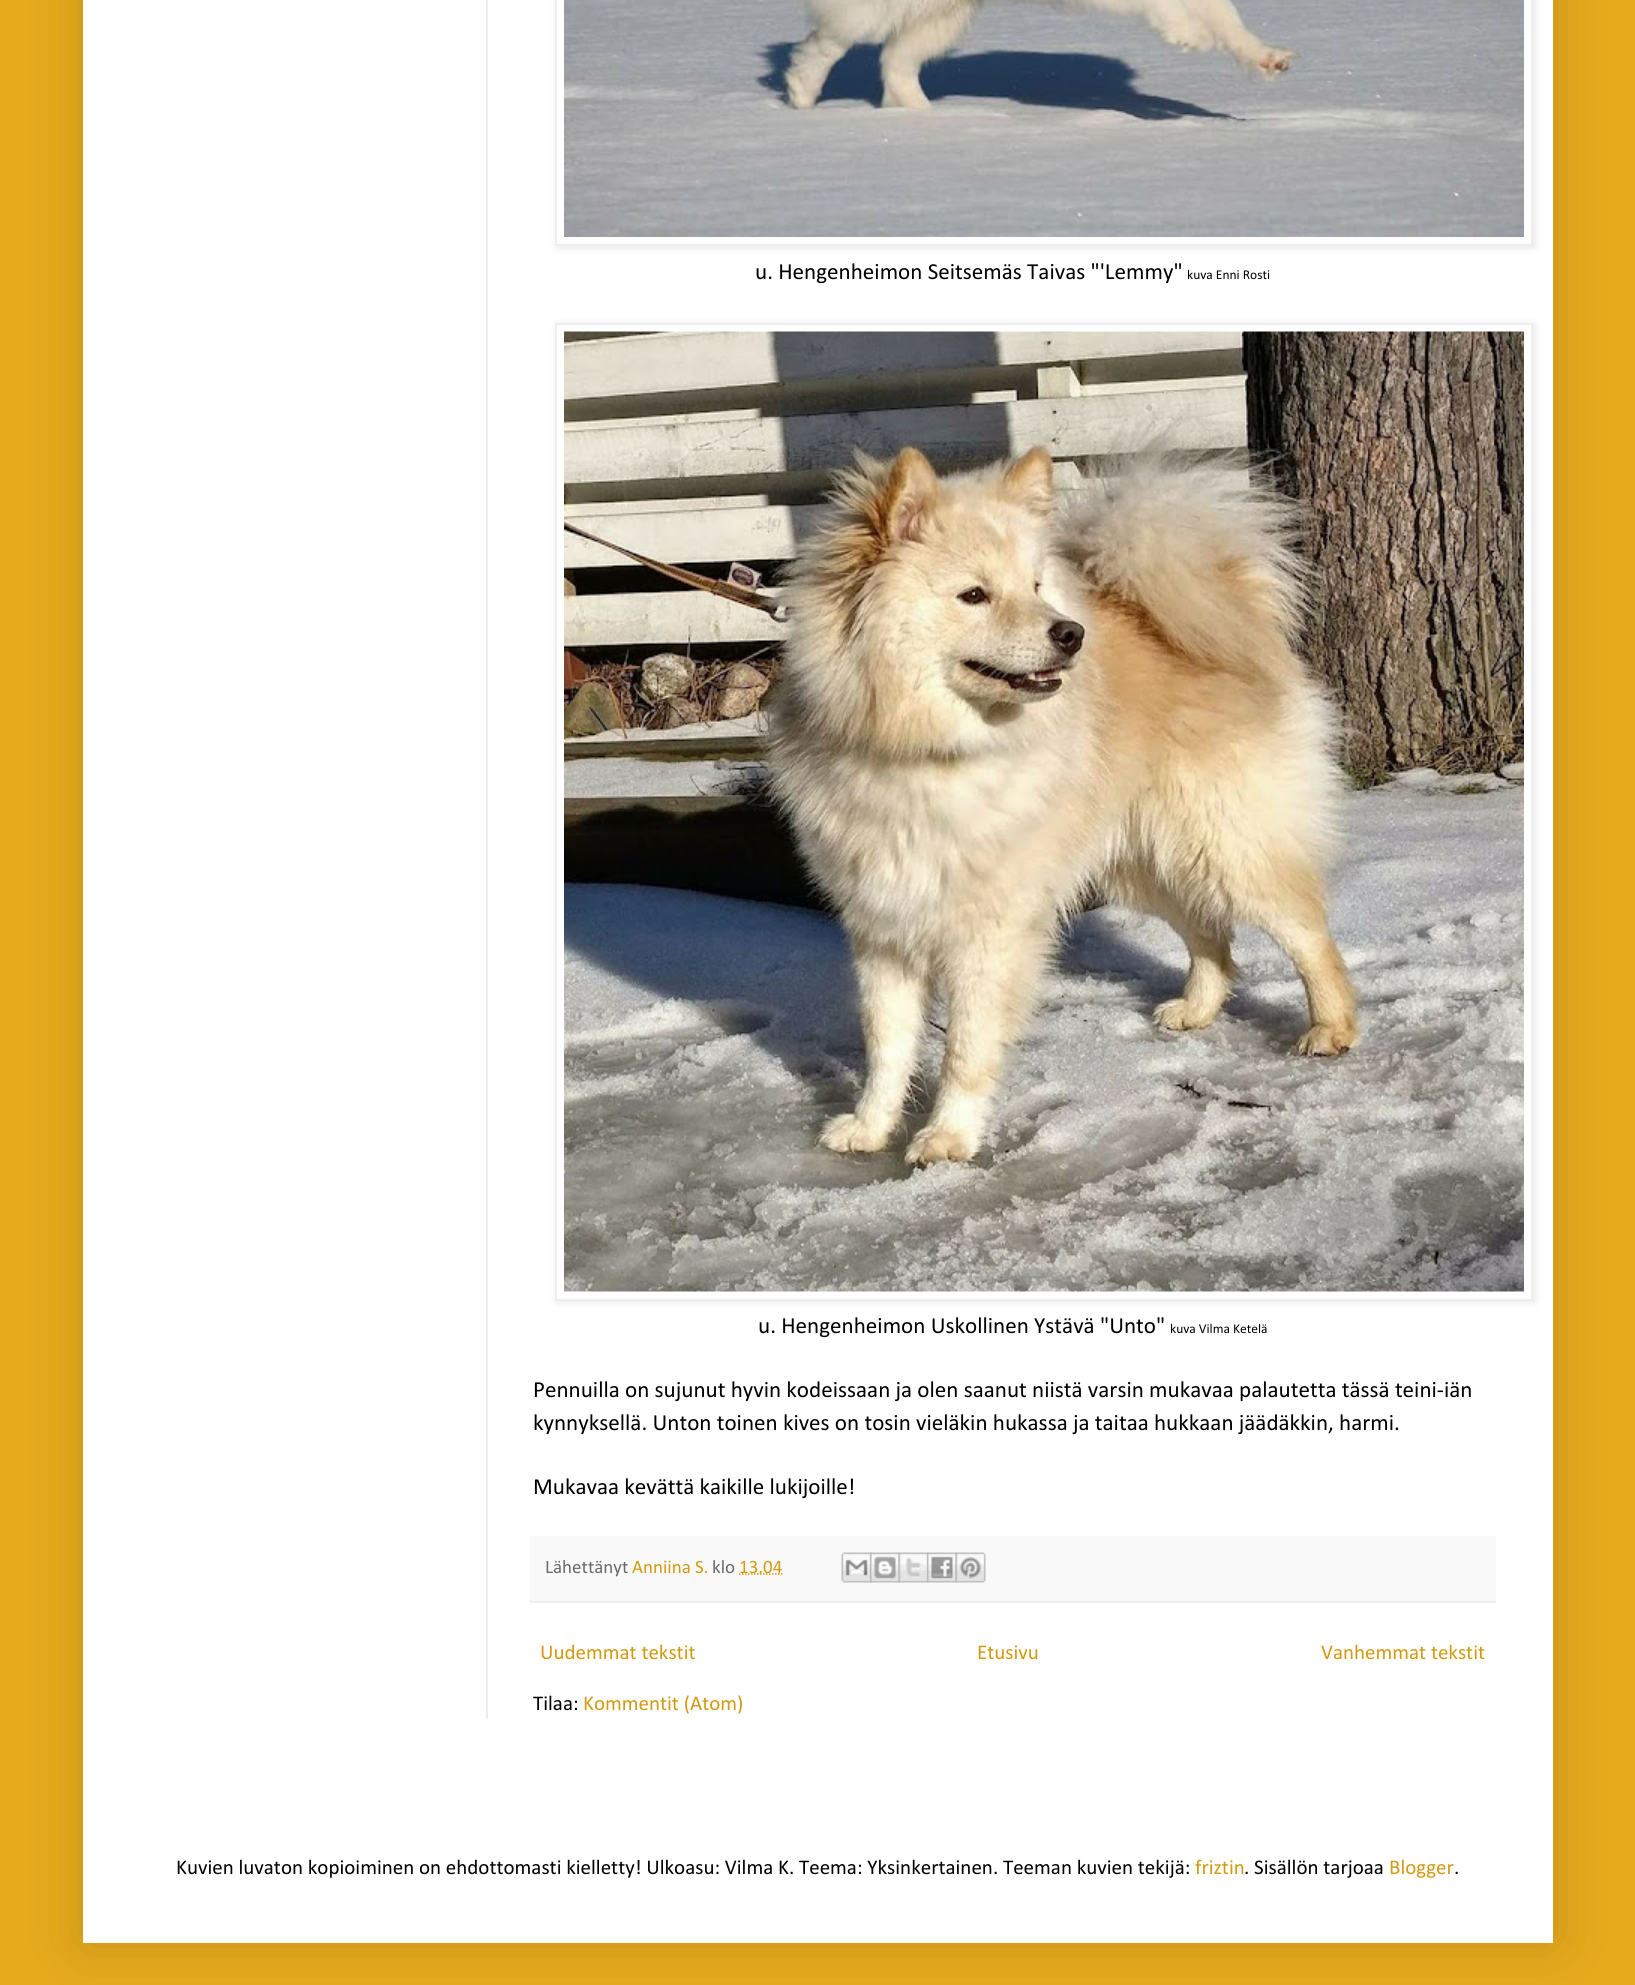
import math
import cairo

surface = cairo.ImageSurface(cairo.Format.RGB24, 1635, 1985)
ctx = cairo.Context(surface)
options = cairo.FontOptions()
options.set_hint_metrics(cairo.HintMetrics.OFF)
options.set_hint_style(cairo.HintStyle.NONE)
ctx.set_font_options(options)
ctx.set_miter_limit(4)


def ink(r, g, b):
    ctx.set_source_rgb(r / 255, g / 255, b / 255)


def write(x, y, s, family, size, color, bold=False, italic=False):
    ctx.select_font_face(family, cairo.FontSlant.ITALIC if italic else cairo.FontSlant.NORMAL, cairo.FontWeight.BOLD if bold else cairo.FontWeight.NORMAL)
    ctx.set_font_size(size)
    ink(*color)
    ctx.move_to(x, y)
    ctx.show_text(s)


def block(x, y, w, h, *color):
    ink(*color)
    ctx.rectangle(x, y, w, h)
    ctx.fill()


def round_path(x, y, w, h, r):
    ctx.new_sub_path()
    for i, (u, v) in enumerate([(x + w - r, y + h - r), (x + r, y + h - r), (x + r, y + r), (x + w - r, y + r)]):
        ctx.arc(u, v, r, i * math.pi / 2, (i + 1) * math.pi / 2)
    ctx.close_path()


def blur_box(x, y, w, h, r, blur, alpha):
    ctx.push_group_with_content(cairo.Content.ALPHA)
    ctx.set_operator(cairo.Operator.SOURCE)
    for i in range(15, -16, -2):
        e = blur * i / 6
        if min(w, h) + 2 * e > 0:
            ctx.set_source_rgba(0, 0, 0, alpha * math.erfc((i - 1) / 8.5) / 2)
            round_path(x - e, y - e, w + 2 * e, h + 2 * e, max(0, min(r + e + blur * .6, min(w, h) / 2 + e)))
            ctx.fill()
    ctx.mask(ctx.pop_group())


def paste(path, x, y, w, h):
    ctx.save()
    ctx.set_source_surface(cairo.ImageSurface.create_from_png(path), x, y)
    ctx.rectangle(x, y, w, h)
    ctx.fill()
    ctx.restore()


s1 = dict(family="Calibri", size=23.1, color=(0, 0, 0))
s2 = dict(family="Calibri", size=13.5, color=(0, 0, 0))
s3 = dict(family="Calibri", size=19, color=(106, 106, 106))
s4 = dict(family="Calibri", size=19, color=(211, 153, 17))
s5 = dict(family="Calibri", size=21, color=(211, 153, 17))
s6 = dict(family="Calibri", size=21, color=(0, 0, 0))

ink(231, 170, 28)
ctx.paint()
ink(0, 0, 0)
blur_box(83, -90, 1470, 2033, 0, 30, 0.15)
block(83, 0, 1470, 1943, 255, 255, 255)
block(486, 0, 2, 1719, 238, 238, 238)
ctx.save()
ctx.set_fill_rule(cairo.FillRule.EVEN_ODD)
ctx.new_path()
ctx.move_to(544, 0)
ctx.line_to(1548, 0)
ctx.line_to(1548, 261)
ctx.line_to(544, 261)
ctx.close_path()
ctx.move_to(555, -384)
ctx.line_to(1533, -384)
ctx.line_to(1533, 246)
ctx.line_to(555, 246)
ctx.close_path()
ctx.clip()
ink(0, 0, 0)
blur_box(557, -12, 978, 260, 0, 4, 0.1)
ctx.restore()
ctx.rectangle(556, -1, 976, 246)
ctx.stroke()
paste("pic1.png", 564, 0, 960, 237)
write(755, 279, "u. Hengenheimon Seitsemäs Taivas \"'Lemmy\"", **s1)
write(1187, 279, "kuva Enni Rosti", **s2)
ink(0, 0, 0)
blur_box(557, 324, 978, 978, 0, 4, 0.1)
ink(255, 255, 255)
ctx.rectangle(556, 324, 976, 976)
ctx.fill_preserve()
ink(238, 238, 238)
ctx.stroke()
paste("pic2.png", 564, 331, 960, 961)
write(758, 1333, "u. Hengenheimon Uskollinen Ystävä \"Unto\"", **s1)
write(1170, 1333, "kuva Vilma Ketelä", **s2)
write(533, 1397, "Pennuilla on sujunut hyvin kodeissaan ja olen saanut niistä varsin mukavaa palautetta tässä teini-iän", **s1)
write(533, 1430, "kynnyksellä. Unton toinen kives on tosin vieläkin hukassa ja taitaa hukkaan jäädäkkin, harmi.", **s1)
write(533, 1494, "Mukavaa kevättä kaikille lukijoille!", **s1)
block(530, 1536, 966, 65, 249, 249, 249)
block(530, 1601, 966, 2, 238, 238, 238)
write(545, 1573, "Lähettänyt", **s3)
write(632, 1573, "Anniina S.", **s4)
write(712, 1573, "klo", **s3)
ctx.new_path()
ctx.move_to(739, 1574)
ctx.line_to(782.5, 1574)
ink(211, 153, 17)
ctx.set_line_width(1.5)
ctx.set_dash([1.5, 1.5])
ctx.stroke()
write(739, 1573, "13.04", **s4)
paste("pic3.png", 841, 1552, 31, 31)
paste("pic4.png", 870, 1552, 30, 31)
paste("pic5.png", 898, 1552, 31, 31)
paste("pic6.png", 927, 1552, 30, 31)
paste("pic7.png", 955, 1552, 31, 31)
write(540, 1659, "Uudemmat tekstit", **s5)
write(977, 1659, "Etusivu", **s5)
write(1321, 1659, "Vanhemmat tekstit", **s5)
write(533, 1710, "Tilaa:", **s6)
write(583, 1710, "Kommentit (Atom)", **s5)
write(176, 1874, "Kuvien luvaton kopioiminen on ehdottomasti kielletty! Ulkoasu: Vilma K. Teema: Yksinkertainen. Teeman kuvien tekijä:", **s6)
write(1195, 1874, "friztin", **s5)
write(1244, 1874, ". Sisällön tarjoaa", **s6)
write(1389, 1874, "Blogger", **s5)
write(1454, 1874, ".", **s6)
surface.write_to_png("screenshot.png")
